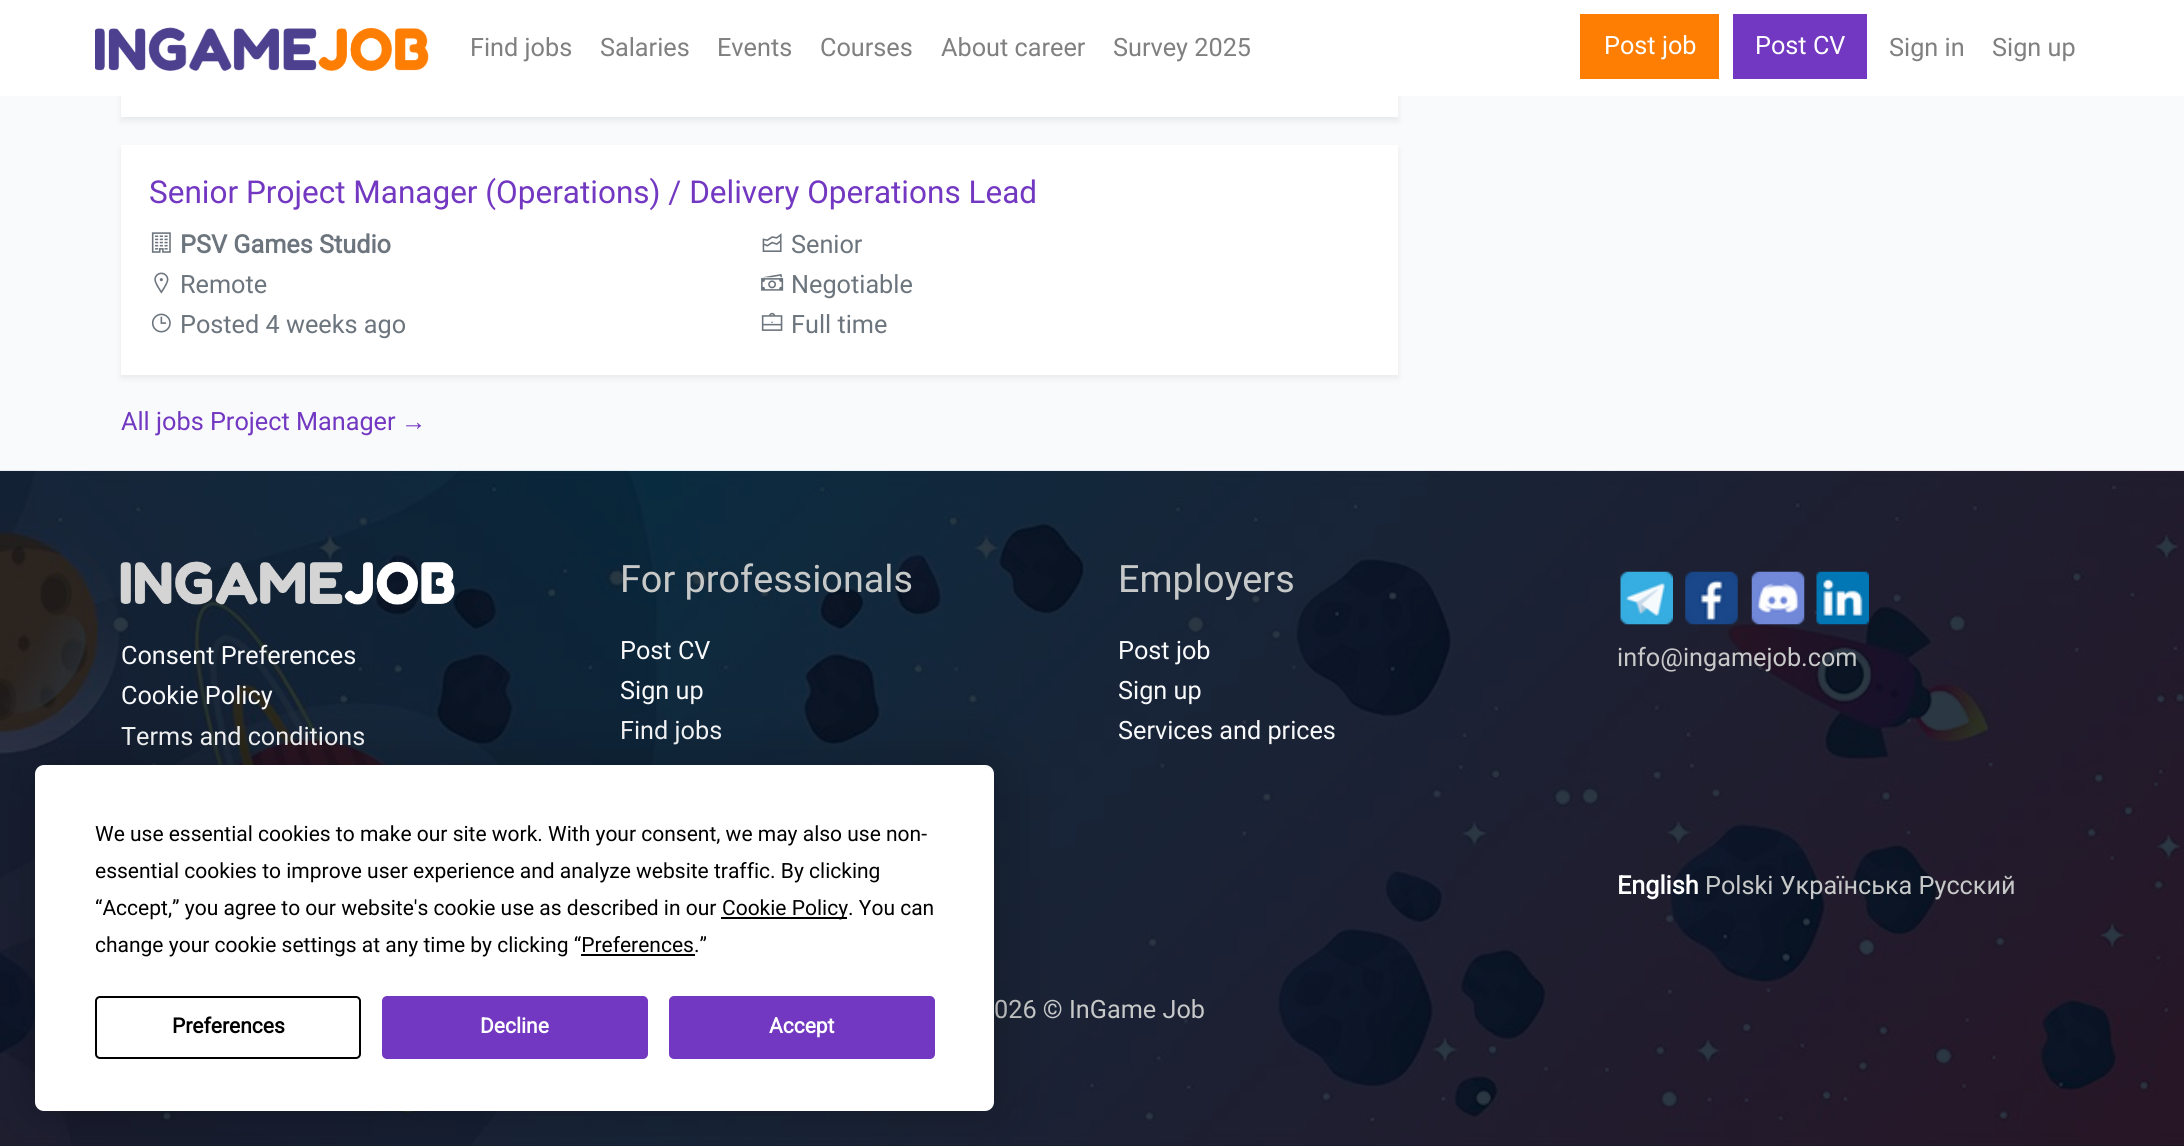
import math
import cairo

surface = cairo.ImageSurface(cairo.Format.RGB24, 2184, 1146)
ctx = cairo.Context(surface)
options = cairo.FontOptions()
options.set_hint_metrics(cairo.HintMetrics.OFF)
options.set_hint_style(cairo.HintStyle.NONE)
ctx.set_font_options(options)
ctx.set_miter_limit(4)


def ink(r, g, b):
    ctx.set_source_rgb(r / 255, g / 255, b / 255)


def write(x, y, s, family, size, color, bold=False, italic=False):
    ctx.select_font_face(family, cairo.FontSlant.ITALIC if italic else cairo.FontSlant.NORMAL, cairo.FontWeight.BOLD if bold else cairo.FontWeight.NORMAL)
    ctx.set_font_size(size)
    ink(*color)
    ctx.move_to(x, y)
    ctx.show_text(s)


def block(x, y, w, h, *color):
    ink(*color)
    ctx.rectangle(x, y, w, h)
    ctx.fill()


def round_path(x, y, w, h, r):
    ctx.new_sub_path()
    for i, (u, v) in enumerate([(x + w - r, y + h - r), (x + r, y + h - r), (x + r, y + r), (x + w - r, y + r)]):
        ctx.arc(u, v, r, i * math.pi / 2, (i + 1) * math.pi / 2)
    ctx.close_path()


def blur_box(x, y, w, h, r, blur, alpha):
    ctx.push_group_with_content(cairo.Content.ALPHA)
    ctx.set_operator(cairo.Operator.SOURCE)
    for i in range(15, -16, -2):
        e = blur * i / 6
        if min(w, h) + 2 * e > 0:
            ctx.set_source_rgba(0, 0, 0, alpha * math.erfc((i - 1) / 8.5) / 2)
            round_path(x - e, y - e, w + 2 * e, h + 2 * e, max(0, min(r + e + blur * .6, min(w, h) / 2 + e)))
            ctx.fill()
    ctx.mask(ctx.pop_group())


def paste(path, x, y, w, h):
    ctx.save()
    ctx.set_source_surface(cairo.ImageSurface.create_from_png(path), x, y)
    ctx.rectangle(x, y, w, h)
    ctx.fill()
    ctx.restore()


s1 = dict(family="Roboto", size=25.25, color=(128, 128, 128))
s2 = dict(family="Roboto", size=25.25, color=(255, 255, 255))
s3 = dict(family="Roboto", size=31.5, color=(115, 56, 193))
s4 = dict(family="Roboto", size=25.25, color=(108, 117, 125), bold=True)
s5 = dict(family="Roboto", size=25.25, color=(108, 117, 125))
s6 = dict(family="Roboto", size=25.25, color=(115, 56, 193))
s7 = dict(family="Liberation Sans", size=25.25, color=(115, 56, 193))
s8 = dict(family="Roboto", size=25.25, color=(248, 249, 250))
s9 = dict(family="Roboto", size=37.75, color=(199, 201, 201))
s10 = dict(family="Roboto", size=25.25, color=(199, 201, 201))
s11 = dict(family="Roboto", size=25.25, color=(255, 255, 255), bold=True)
s12 = dict(family="Roboto", size=21, color=(0, 0, 0))
s13 = dict(family="Roboto", size=21, color=(0, 0, 0), bold=True)
s14 = dict(family="Roboto", size=21, color=(255, 255, 255), bold=True)

ink(248, 250, 252)
ctx.paint()
ink(0, 0, 0)
blur_box(121, -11, 1277, 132, 0, 3.5, 0.07)
block(0, 0, 2184, 96, 255, 255, 255)
paste("pic1.png", 95, 27, 334, 44)
write(470, 56, "Find jobs", **s1)
write(600, 56, "Salaries", **s1)
write(717, 56, "Events", **s1)
write(820, 56, "Сourses", **s1)
write(941, 56, "About career", **s1)
write(1113, 56, "Survey 2025", **s1)
block(1580, 14, 139, 65, 254, 126, 4)
write(1604, 54, "Post job", **s2)
block(1733, 14, 134, 65, 115, 56, 193)
write(1755, 54, "Post CV", **s2)
write(1889, 56, "Sign in", **s1)
write(1992, 56, "Sign up", **s1)
block(121, 96, 1277, 21, 255, 255, 255)
ink(0, 0, 0)
blur_box(121, 149, 1277, 229, 0, 3.5, 0.07)
block(121, 145, 1277, 230, 255, 255, 255)
write(149, 203, "Senior Project Manager (Operations) / Delivery Operations Lead", **s3)
paste("pic2.png", 151, 232, 20, 21)
write(180, 253, "PSV Games Studio", **s4)
paste("pic3.png", 154, 272, 15, 22)
write(180, 293, "Remote", **s5)
paste("pic4.png", 151, 313, 20, 20)
write(180, 333, "Posted 4 weeks ago", **s5)
paste("pic5.png", 762, 233, 20, 19)
write(791, 253, "Senior", **s5)
paste("pic6.png", 761, 274, 23, 17)
write(791, 293, "Negotiable", **s5)
paste("pic7.png", 761, 312, 22, 19)
write(791, 333, "Full time", **s5)
write(121, 430, "All jobs Project Manager", **s6)
write(401, 430, "→", **s7)
block(0, 471, 2184, 675, 0, 16, 29)
paste("pic8.png", 0, 470, 2184, 676)
paste("pic9.png", 120, 561, 335, 44)
write(121, 664, "Consent Preferences", **s8)
write(121, 704, "Cookie Policy", **s8)
write(121, 745, "Terms and conditions", **s8)
write(620, 592, "For professionals", **s9)
write(620, 659, "Post CV", **s8)
write(620, 699, "Sign up", **s8)
write(620, 739, "Find jobs", **s8)
write(1118, 592, "Employers", **s9)
write(1118, 659, "Post job", **s8)
write(1118, 699, "Sign up", **s8)
write(1118, 739, "Services and prices", **s8)
paste("pic10.png", 1620, 571, 53, 54)
paste("pic11.png", 1685, 571, 53, 54)
paste("pic12.png", 1751, 571, 54, 54)
paste("pic13.png", 1816, 571, 53, 54)
write(1617, 666, "info@ingamejob.com", **s10)
write(1617, 894, "English", **s11)
write(1705, 894, "Polski Українська Русский", **s10)
write(994, 1018, "026 © InGame Job", **s10)
ink(0, 0, 0)
blur_box(35, 765, 959, 346, 9, 30.5, 0.25)
ink(255, 255, 255)
round_path(35, 765, 959, 346, 9)
ctx.fill()
write(95, 841, "We use essential cookies to make our site work. With your consent, we may also use non-", **s12)
write(95, 878, "essential cookies to improve user experience and analyze website traffic. By clicking", **s12)
write(95, 915, "“Accept,” you agree to our website's cookie use as described in our", **s12)
block(721, 917, 126, 2, 0, 0, 0)
write(722, 915, "Cookie Policy. You can", **s12)
write(95, 952, "change your cookie settings at any time by clicking “Preferences.”", **s12)
block(581, 954, 114, 2, 0, 0, 0)
round_path(96, 997, 264, 61, 4)
ctx.stroke()
write(172, 1033, "Preferences", **s13)
ink(115, 56, 193)
round_path(383, 997, 264, 61, 4)
ctx.fill_preserve()
ctx.stroke()
write(480, 1033, "Decline", **s14)
ink(115, 56, 193)
round_path(670, 997, 264, 61, 4)
ctx.fill_preserve()
ctx.stroke()
write(769, 1033, "Accept", **s14)
surface.write_to_png("screenshot.png")
